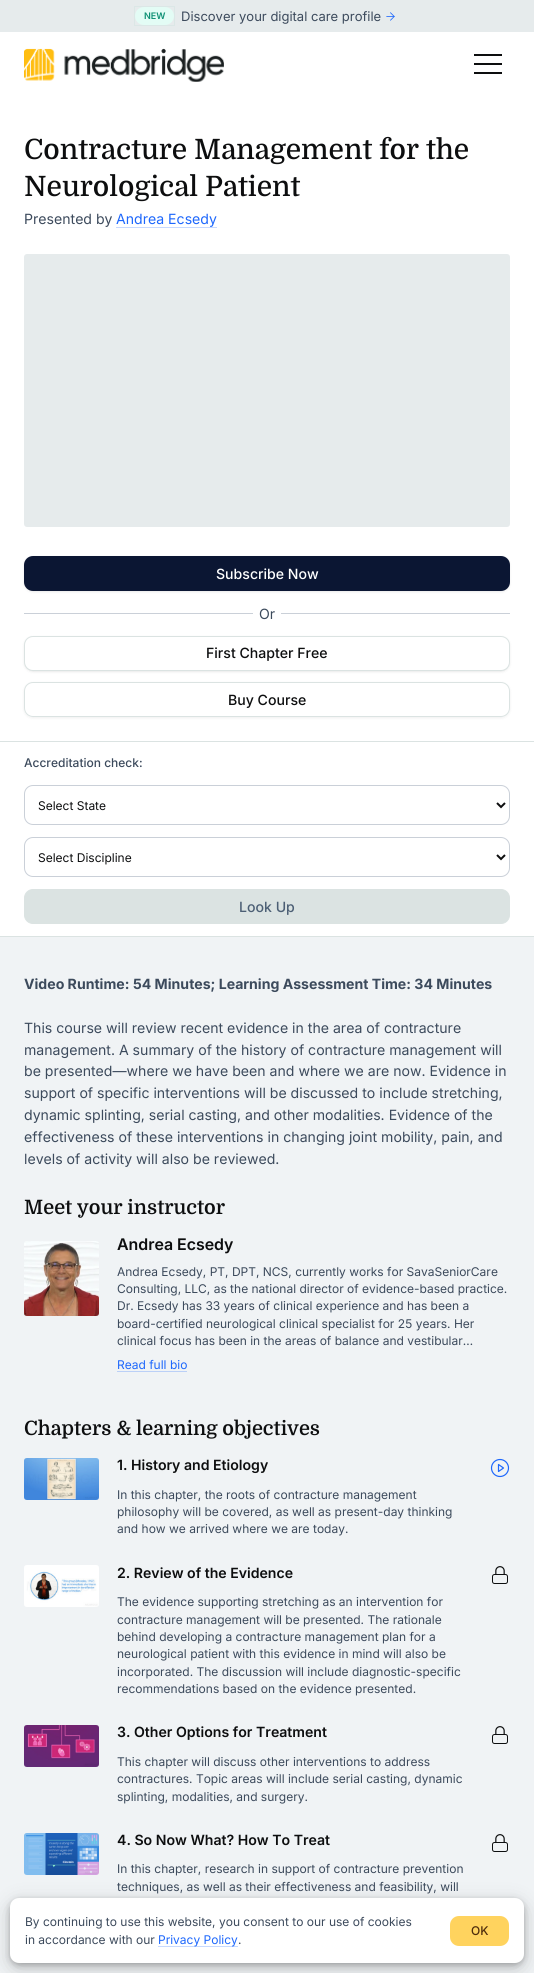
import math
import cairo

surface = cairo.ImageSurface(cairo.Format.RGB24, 534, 1973)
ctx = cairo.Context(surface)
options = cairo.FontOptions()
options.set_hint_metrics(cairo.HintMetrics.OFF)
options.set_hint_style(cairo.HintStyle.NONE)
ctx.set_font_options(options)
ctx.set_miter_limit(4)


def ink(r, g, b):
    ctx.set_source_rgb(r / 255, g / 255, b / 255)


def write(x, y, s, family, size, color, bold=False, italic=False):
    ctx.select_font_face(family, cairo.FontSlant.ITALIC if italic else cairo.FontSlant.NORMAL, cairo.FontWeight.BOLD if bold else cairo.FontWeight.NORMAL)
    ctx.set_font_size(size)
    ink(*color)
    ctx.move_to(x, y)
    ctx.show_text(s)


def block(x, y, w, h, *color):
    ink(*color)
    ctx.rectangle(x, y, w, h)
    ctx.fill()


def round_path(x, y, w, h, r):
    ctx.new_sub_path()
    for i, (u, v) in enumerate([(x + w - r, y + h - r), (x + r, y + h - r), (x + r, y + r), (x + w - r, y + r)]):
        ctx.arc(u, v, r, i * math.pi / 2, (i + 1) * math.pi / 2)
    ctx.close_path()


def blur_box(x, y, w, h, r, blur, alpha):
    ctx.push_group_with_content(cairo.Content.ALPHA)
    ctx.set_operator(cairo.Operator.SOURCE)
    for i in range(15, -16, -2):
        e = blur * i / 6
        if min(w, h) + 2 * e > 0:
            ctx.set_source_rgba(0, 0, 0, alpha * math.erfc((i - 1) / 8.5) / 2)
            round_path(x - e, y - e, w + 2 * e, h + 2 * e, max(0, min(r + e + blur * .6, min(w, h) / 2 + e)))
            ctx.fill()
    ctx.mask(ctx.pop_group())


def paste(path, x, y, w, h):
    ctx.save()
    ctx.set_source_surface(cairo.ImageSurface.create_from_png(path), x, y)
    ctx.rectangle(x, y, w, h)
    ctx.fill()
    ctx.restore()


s1 = dict(family="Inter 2 SemiBold", size=9, color=(15, 145, 117))
s2 = dict(family="Inter", size=13, color=(60, 74, 92))
s3 = dict(family="Domine Medium", size=28, color=(13, 14, 15))
s4 = dict(family="Inter", size=14.1, color=(60, 74, 92))
s5 = dict(family="Inter", size=14.1, color=(29, 103, 252))
s6 = dict(family="Inter Medium", size=14.1, color=(255, 255, 255))
s7 = dict(family="Inter Medium", size=14.1, color=(13, 14, 15))
s8 = dict(family="Inter Medium", size=12, color=(60, 74, 92))
s9 = dict(family="Inter", size=12, color=(13, 14, 15))
s10 = dict(family="Inter Medium", size=14.1, color=(76, 95, 117))
s11 = dict(family="Inter", size=14.1, color=(60, 74, 92), bold=True)
s12 = dict(family="Domine SemiBold", size=19.8, color=(13, 14, 15))
s13 = dict(family="Inter SemiBold", size=16, color=(13, 14, 15))
s14 = dict(family="Inter", size=12, color=(60, 74, 92))
s15 = dict(family="Inter", size=12, color=(29, 103, 252))
s16 = dict(family="Inter 2 SemiBold", size=14.1, color=(13, 14, 15))
s17 = dict(family="Inter Medium", size=12, color=(79, 45, 12))

ink(255, 255, 255)
ctx.paint()
block(0, 0, 534, 32, 230, 235, 236)
ink(227, 252, 245)
round_path(135, 7, 39, 18, 9)
ctx.fill()
ctx.rectangle(134.5, 6.5, 40, 19)
ctx.set_source_rgba(0.059, 0.569, 0.459, 0.05)
ctx.set_line_width(1)
ctx.stroke()
write(144, 19, "NEW", **s1)
write(181, 21, "Discover your digital care profile", **s2)
paste("pic1.png", 386, 12, 9, 9)
write(24, 159, "Contracture Management for the", **s3)
write(24, 196, "Neurological Patient", **s3)
write(24, 224, "Presented by", **s4)
write(116, 224, "Andrea Ecsedy", **s5)
block(116, 227, 101, 1, 199, 217, 254)
ink(230, 235, 236)
round_path(24, 254, 486, 273, 3)
ctx.fill()
ink(0, 0, 0)
blur_box(25, 558, 484, 33, 8, 1, 0.07)
blur_box(24, 557, 486, 35, 9, 1.5, 0.07)
ink(11, 22, 51)
round_path(24, 556, 486, 35, 9)
ctx.fill()
write(216, 579, "Subscribe Now", **s6)
block(24, 613, 229, 1, 202, 208, 216)
write(259, 619, "Or", **s4)
block(281, 613, 229, 1, 202, 208, 216)
ink(0, 0, 0)
blur_box(25, 638, 484, 33, 8, 1, 0.07)
blur_box(24, 637, 486, 35, 9, 1.5, 0.07)
ink(255, 255, 255)
round_path(24.5, 636.5, 485, 34, 8.5)
ctx.fill_preserve()
ink(219, 227, 226)
ctx.stroke()
write(206, 658, "First Chapter Free", **s7)
ctx.save()
ctx.set_fill_rule(cairo.FillRule.EVEN_ODD)
ctx.new_path()
ctx.move_to(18, 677)
ctx.line_to(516, 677)
ctx.line_to(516, 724)
ctx.line_to(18, 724)
ctx.close_path()
ctx.move_to(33, 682)
ctx.line_to(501, 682)
ctx.curve_to(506, 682, 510, 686, 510, 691)
ctx.line_to(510, 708)
ctx.curve_to(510, 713, 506, 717, 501, 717)
ctx.line_to(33, 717)
ctx.curve_to(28, 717, 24, 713, 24, 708)
ctx.line_to(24, 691)
ctx.curve_to(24, 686, 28, 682, 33, 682)
ctx.close_path()
ctx.clip()
ink(0, 0, 0)
blur_box(24, 683, 486, 35, 9, 1.5, 0.07)
ctx.restore()
ink(255, 255, 255)
round_path(24.5, 682.5, 485, 34, 8.5)
ctx.fill_preserve()
ink(219, 227, 226)
ctx.stroke()
write(228, 705, "Buy Course", **s7)
block(0, 741, 534, 1, 219, 227, 226)
block(0, 936, 534, 1, 219, 227, 226)
write(24, 767, "Accreditation check:", **s8)
round_path(24.5, 785.5, 485, 39, 8.5)
ink(202, 208, 216)
ctx.stroke()
ctx.new_path()
ctx.move_to(497, 803)
ctx.line_to(501, 807)
ctx.line_to(505, 803)
ink(13, 14, 15)
ctx.set_line_width(2)
ctx.stroke()
write(38, 810, "Select State", **s9)
round_path(24.5, 837.5, 485, 39, 8.5)
ink(202, 208, 216)
ctx.set_line_width(1)
ctx.stroke()
ctx.new_path()
ctx.move_to(497, 855)
ctx.line_to(501, 859)
ctx.line_to(505, 855)
ink(13, 14, 15)
ctx.set_line_width(2)
ctx.stroke()
write(38, 862, "Select Discipline", **s9)
ink(219, 227, 226)
round_path(24.5, 889.5, 485, 34, 8.5)
ctx.fill_preserve()
ctx.set_line_width(1)
ctx.stroke()
write(239, 912, "Look Up", **s10)
block(0, 937, 534, 1036, 240, 243, 245)
write(24, 989, "Video Runtime: 54 Minutes; Learning Assessment Time: 34 Minutes", **s11)
write(24, 1033, "This course will review recent evidence in the area of contracture", **s4)
write(24, 1055, "management. A summary of the history of contracture management will", **s4)
write(24, 1076, "be presented—where we have been and where we are now. Evidence in", **s4)
write(24, 1098, "support of specific interventions will be discussed to include stretching,", **s4)
write(24, 1120, "dynamic splinting, serial casting, and other modalities. Evidence of the", **s4)
write(24, 1142, "effectiveness of these interventions in changing joint mobility, pain, and", **s4)
write(24, 1164, "levels of activity will also be reviewed.", **s4)
write(24, 1214, "Meet your instructor", **s12)
paste("pic2.png", 24, 1241, 75, 75)
write(117, 1250, "Andrea Ecsedy", **s13)
write(117, 1276, "Andrea Ecsedy, PT, DPT, NCS, currently works for SavaSeniorCare", **s14)
write(117, 1293, "Consulting, LLC, as the national director of evidence-based practice.", **s14)
write(117, 1310, "Dr. Ecsedy has 33 years of clinical experience and has been a", **s14)
write(117, 1328, "board-certified neurological clinical specialist for 25 years. Her", **s14)
write(117, 1345, "clinical focus has been in the areas of balance and vestibular…", **s14)
write(117, 1369, "Read full bio", **s15)
block(117, 1371, 70, 1, 187, 208, 247)
write(24, 1435, "Chapters & learning objectives", **s12)
paste("pic3.png", 24, 1458, 75, 42)
write(117, 1470, "1. History and Etiology", **s16)
write(117, 1499, "In this chapter, the roots of contracture management", **s14)
write(117, 1516, "philosophy will be covered, as well as present-day thinking", **s14)
write(117, 1533, "and how we arrived where we are today.", **s14)
ctx.new_path()
ctx.arc(500, 1468, 8.5, 0, 2 * math.pi)
ink(29, 103, 252)
ctx.set_line_width(1.2)
ctx.stroke()
ctx.new_path()
ctx.move_to(498.5, 1464.5)
ctx.line_to(503.5, 1468)
ctx.line_to(498.5, 1471.5)
ctx.close_path()
ctx.set_line_cap(cairo.LineCap.ROUND)
ctx.set_line_join(cairo.LineJoin.ROUND)
ctx.stroke()
paste("pic4.png", 24, 1565, 75, 42)
write(117, 1578, "2. Review of the Evidence", **s16)
write(117, 1606, "The evidence supporting stretching as an intervention for", **s14)
write(117, 1624, "contracture management will be presented. The rationale", **s14)
write(117, 1641, "behind developing a contracture management plan for a", **s14)
write(117, 1658, "neurological patient with this evidence in mind will also be", **s14)
write(117, 1676, "incorporated. The discussion will include diagnostic-specific", **s14)
write(117, 1693, "recommendations based on the evidence presented.", **s14)
paste("pic5.png", 492, 1566, 16, 18)
paste("pic6.png", 24, 1725, 75, 42)
write(117, 1737, "3. Other Options for Treatment", **s16)
write(117, 1766, "This chapter will discuss other interventions to address", **s14)
write(117, 1783, "contractures. Topic areas will include serial casting, dynamic", **s14)
write(117, 1801, "splinting, modalities, and surgery.", **s14)
paste("pic5.png", 492, 1726, 16, 18)
paste("pic7.png", 24, 1833, 75, 42)
write(117, 1845, "4. So Now What? How To Treat", **s16)
write(117, 1873, "In this chapter, research in support of contracture prevention", **s14)
write(117, 1891, "techniques, as well as their effectiveness and feasibility, will", **s14)
paste("pic5.png", 492, 1834, 16, 18)
paste("pic8.png", 24, 48, 200, 34)
block(474, 63, 28, 2, 13, 14, 15)
block(474, 54, 28, 2, 13, 14, 15)
block(474, 72, 28, 2, 13, 14, 15)
ink(0, 0, 0)
blur_box(10, 1900, 514, 65, 9, 3, 0.23)
blur_box(10, 1904, 514, 65, 9, 10, 0.19)
ink(255, 255, 255)
round_path(10, 1898, 514, 65, 9)
ctx.fill()
write(25, 1926, "By continuing to use this website, you consent to our use of cookies", **s14)
write(25, 1944, "in accordance with our", **s14)
block(158, 1946, 80, 1, 199, 217, 254)
write(158, 1944, "Privacy Policy", **s15)
write(238, 1944, ".", **s14)
ink(255, 211, 94)
round_path(450, 1916, 59, 30, 9)
ctx.fill()
write(471, 1935, "OK", **s17)
surface.write_to_png("screenshot.png")
